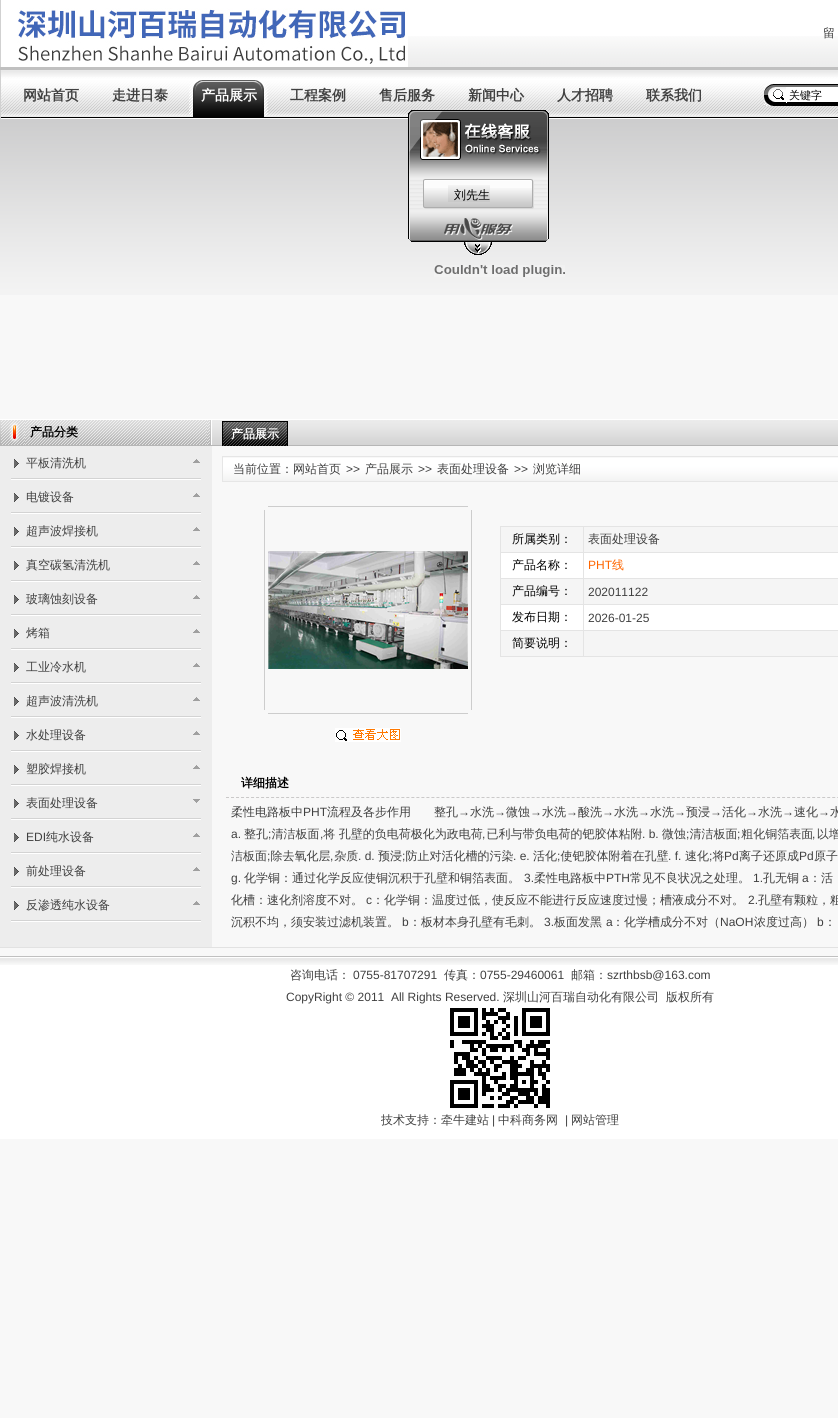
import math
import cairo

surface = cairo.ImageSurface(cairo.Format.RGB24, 838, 1418)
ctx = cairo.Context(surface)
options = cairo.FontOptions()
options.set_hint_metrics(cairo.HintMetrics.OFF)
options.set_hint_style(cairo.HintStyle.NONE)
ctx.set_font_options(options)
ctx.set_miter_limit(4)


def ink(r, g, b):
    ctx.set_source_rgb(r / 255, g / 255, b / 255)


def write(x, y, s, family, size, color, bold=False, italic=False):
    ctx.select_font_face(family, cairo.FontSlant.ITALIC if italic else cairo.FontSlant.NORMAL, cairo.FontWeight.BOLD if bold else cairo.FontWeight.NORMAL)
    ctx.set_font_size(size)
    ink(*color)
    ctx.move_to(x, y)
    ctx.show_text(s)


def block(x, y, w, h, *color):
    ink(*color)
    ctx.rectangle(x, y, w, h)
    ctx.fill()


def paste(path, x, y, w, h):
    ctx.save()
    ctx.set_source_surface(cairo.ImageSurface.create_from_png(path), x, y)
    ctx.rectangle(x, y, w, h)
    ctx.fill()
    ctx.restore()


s1 = dict(family="WenQuanYi Zen Hei Medium", size=12, color=(64, 64, 64))
s2 = dict(family="WenQuanYi Zen Hei", size=14, color=(64, 64, 64), bold=True)
s3 = dict(family="WenQuanYi Zen Hei", size=14, color=(255, 255, 255), bold=True)
s4 = dict(family="WenQuanYi Zen Hei Medium", size=11, color=(0, 0, 0))
s5 = dict(family="WenQuanYi Zen Hei", size=12, color=(0, 0, 0), bold=True)
s6 = dict(family="Liberation Sans", size=12, color=(64, 64, 64))
s7 = dict(family="WenQuanYi Zen Hei", size=12, color=(255, 255, 255), bold=True)
s8 = dict(family="WenQuanYi Zen Hei Medium", size=12, color=(0, 0, 0))
s9 = dict(family="Liberation Sans", size=12, color=(255, 102, 0))
s10 = dict(family="WenQuanYi Zen Hei Medium", size=12, color=(255, 102, 0))

ink(248, 248, 248)
ctx.paint()
paste("pic1.png", 0, 119, 838, 176)
block(1, 0, 837, 36, 255, 255, 255)
paste("pic2.png", 408, 36, 430, 31)
block(0, 0, 1, 67, 209, 209, 209)
paste("pic3.png", 1, 8, 407, 59)
write(823, 37, "留", **s1)
block(0, 67, 838, 3, 192, 192, 192)
paste("pic4.png", 1, 70, 837, 49)
block(0, 70, 1, 49, 209, 209, 209)
write(23, 100, "网站首页", **s2)
write(112, 100, "走进日泰", **s2)
paste("pic5.png", 189, 80, 79, 37)
write(201, 100, "产品展示", **s3)
write(290, 100, "工程案例", **s2)
write(379, 100, "售后服务", **s2)
write(468, 100, "新闻中心", **s2)
write(557, 100, "人才招聘", **s2)
write(646, 100, "联系我们", **s2)
paste("pic6.png", 764, 84, 22, 22)
paste("pic7.png", 786, 84, 52, 22)
block(787, 87, 51, 3, 255, 255, 255)
block(786, 87, 1, 16, 255, 255, 255)
write(789, 99, "关键字", **s4)
paste("pic8.png", 434, 265, 131, 12)
block(0, 947, 838, 1, 226, 226, 226)
block(0, 446, 212, 501, 237, 237, 237)
paste("pic9.png", 0, 419, 25, 27)
paste("pic10.png", 25, 419, 182, 27)
write(30, 436, "产品分类", **s5)
paste("pic11.png", 207, 419, 5, 27)
paste("pic12.png", 11, 478, 190, 2)
paste("pic13.png", 14, 459, 5, 9)
write(26, 467, "平板清洗机", **s1)
paste("pic14.png", 193, 459, 7, 4)
paste("pic12.png", 11, 512, 190, 2)
paste("pic13.png", 14, 493, 5, 9)
write(26, 501, "电镀设备", **s1)
paste("pic14.png", 193, 493, 7, 4)
paste("pic12.png", 11, 546, 190, 2)
paste("pic13.png", 14, 527, 5, 9)
write(26, 535, "超声波焊接机", **s1)
paste("pic14.png", 193, 527, 7, 4)
paste("pic12.png", 11, 580, 190, 2)
paste("pic13.png", 14, 561, 5, 9)
write(26, 569, "真空碳氢清洗机", **s1)
paste("pic14.png", 193, 561, 7, 4)
paste("pic12.png", 11, 614, 190, 2)
paste("pic13.png", 14, 595, 5, 9)
write(26, 603, "玻璃蚀刻设备", **s1)
paste("pic14.png", 193, 595, 7, 4)
paste("pic12.png", 11, 648, 190, 2)
paste("pic13.png", 14, 629, 5, 9)
write(26, 637, "烤箱", **s1)
paste("pic14.png", 193, 629, 7, 4)
paste("pic12.png", 11, 682, 190, 2)
paste("pic13.png", 14, 663, 5, 9)
write(26, 671, "工业冷水机", **s1)
paste("pic14.png", 193, 663, 7, 4)
paste("pic12.png", 11, 716, 190, 2)
paste("pic13.png", 14, 697, 5, 9)
write(26, 705, "超声波清洗机", **s1)
paste("pic14.png", 193, 697, 7, 4)
paste("pic12.png", 11, 750, 190, 2)
paste("pic13.png", 14, 731, 5, 9)
write(26, 739, "水处理设备", **s1)
paste("pic14.png", 193, 731, 7, 4)
paste("pic12.png", 11, 784, 190, 2)
paste("pic13.png", 14, 765, 5, 9)
write(26, 773, "塑胶焊接机", **s1)
paste("pic14.png", 193, 765, 7, 4)
paste("pic12.png", 11, 818, 190, 2)
paste("pic13.png", 14, 799, 5, 9)
write(26, 807, "表面处理设备", **s1)
paste("pic15.png", 193, 799, 7, 4)
paste("pic12.png", 11, 852, 190, 2)
paste("pic13.png", 14, 833, 5, 9)
write(26, 841, "EDI", **s6)
write(46, 841, "纯水设备", **s1)
paste("pic14.png", 193, 833, 7, 4)
paste("pic12.png", 11, 886, 190, 2)
paste("pic13.png", 14, 867, 5, 9)
write(26, 875, "前处理设备", **s1)
paste("pic14.png", 193, 867, 7, 4)
paste("pic12.png", 11, 920, 190, 2)
paste("pic13.png", 14, 901, 5, 9)
write(26, 909, "反渗透纯水设备", **s1)
paste("pic14.png", 193, 901, 7, 4)
paste("pic16.png", 212, 419, 626, 27)
paste("pic17.png", 223, 422, 64, 24)
block(222, 421, 66, 1, 0, 0, 0)
block(287, 421, 1, 25, 0, 0, 0)
block(222, 421, 1, 25, 0, 0, 0)
write(231, 438, "产品展示", **s7)
paste("pic18.png", 223, 458, 615, 23)
ctx.rectangle(222.5, 456.5, 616, 25)
ink(230, 230, 230)
ctx.set_line_width(1)
ctx.stroke()
write(233, 473, "当前位置：", **s1)
write(293, 473, "网站首页", **s1)
write(346, 473, ">>", **s6)
write(365, 473, "产品展示", **s1)
write(418, 473, ">>", **s6)
write(437, 473, "表面处理设备", **s1)
write(514, 473, ">>", **s6)
write(533, 473, "浏览详细", **s1)
block(268, 506, 200, 1, 205, 205, 205)
block(264, 510, 1, 200, 205, 205, 205)
paste("pic19.png", 268, 551, 200, 118)
block(471, 510, 1, 200, 205, 205, 205)
block(268, 713, 200, 1, 205, 205, 205)
paste("pic20.png", 335, 728, 66, 14)
block(500, 526, 338, 131, 228, 228, 228)
block(501, 527, 82, 25, 245, 245, 245)
write(512, 543, "所属类别：", **s8)
block(584, 527, 254, 25, 245, 245, 245)
write(588, 543, "表面处理设备", **s1)
block(501, 553, 82, 25, 255, 255, 255)
write(512, 569, "产品名称：", **s8)
block(584, 553, 254, 25, 255, 255, 255)
write(588, 569, "PHT", **s9)
write(612, 569, "线", **s10)
block(501, 579, 82, 25, 245, 245, 245)
write(512, 595, "产品编号：", **s8)
block(584, 579, 254, 25, 245, 245, 245)
write(588, 596, "202011122", **s6)
block(501, 605, 82, 25, 255, 255, 255)
write(512, 621, "发布日期：", **s8)
block(584, 605, 254, 25, 255, 255, 255)
write(588, 622, "2026-01-25", **s6)
block(501, 631, 82, 25, 245, 245, 245)
write(512, 647, "简要说明：", **s8)
block(584, 631, 254, 25, 245, 245, 245)
ctx.new_path()
ctx.move_to(226, 797.5)
ctx.line_to(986, 797.5)
ink(202, 201, 201)
ctx.set_dash([3, 2.01])
ctx.stroke()
write(241, 787, "详细描述", **s5)
write(231, 816, "柔性电路板中", **s1)
write(303, 816, "PHT", **s6)
write(327, 816, "流程及各步作用", **s1)
write(434, 816, "整孔", **s1)
write(458, 816, "→", **s6)
write(470, 816, "水洗", **s1)
write(494, 816, "→", **s6)
write(506, 816, "微蚀", **s1)
write(530, 816, "→", **s6)
write(542, 816, "水洗", **s1)
write(566, 816, "→", **s6)
write(578, 816, "酸洗", **s1)
write(602, 816, "→", **s6)
write(614, 816, "水洗", **s1)
write(638, 816, "→", **s6)
write(650, 816, "水洗", **s1)
write(674, 816, "→", **s6)
write(686, 816, "预浸", **s1)
write(710, 816, "→", **s6)
write(722, 816, "活化", **s1)
write(746, 816, "→", **s6)
write(758, 816, "水洗", **s1)
write(782, 816, "→", **s6)
write(794, 816, "速化", **s1)
write(818, 816, "→", **s6)
write(830, 816, "水", **s1)
write(231, 838, "a.", **s6)
write(244, 838, "整孔 清洁板面 将 孔壁的负电荷极化为政电荷 已利与带负电荷的钯胶体粘附", **s1)
write(642, 838, ". b.", **s6)
write(662, 838, "微蚀 清洁板面 粗化铜箔表面 以增", **s1)
write(268, 838, ";", **s6)
write(320, 838, ",", **s6)
write(482, 838, ",", **s6)
write(686, 838, ";", **s6)
write(737, 838, ";", **s6)
write(812, 838, ",", **s6)
write(231, 860, "洁板面 除去氧化层 杂质", **s1)
write(358, 860, ". d.", **s6)
write(378, 860, "预浸 防止对活化槽的污染", **s1)
write(533, 860, "活化 使钯胶体附着在孔壁", **s1)
write(668, 860, ". f.", **s6)
write(685, 860, "速化 将", **s1)
write(724, 860, "Pd", **s6)
write(739, 860, "离子还原成", **s1)
write(799, 860, "Pd", **s6)
write(814, 860, "原子", **s1)
write(267, 860, ";", **s6)
write(330, 860, ",", **s6)
write(402, 860, ";", **s6)
write(513, 860, ". e.", **s6)
write(557, 860, ";", **s6)
write(709, 860, ";", **s6)
write(231, 882, "g.", **s6)
write(244, 882, "化学铜：通过化学反应使铜沉积于孔壁和铜箔表面。", **s1)
write(524, 882, "3.", **s6)
write(534, 882, "柔性电路板中", **s1)
write(606, 882, "PTH", **s6)
write(630, 882, "常见不良状况之处理。", **s1)
write(753, 882, "1.", **s6)
write(763, 882, "孔无铜", **s1)
write(802, 882, "a", **s6)
write(809, 882, "：活", **s1)
write(231, 904, "化槽：速化剂溶度不对。", **s1)
write(366, 904, "c", **s6)
write(372, 904, "：化学铜：温度过低，使反应不能进行反应速度过慢；槽液成分不对。", **s1)
write(748, 904, "2.", **s6)
write(758, 904, "孔壁有颗粒，粗", **s1)
write(231, 926, "沉积不均，须安装过滤机装置。", **s1)
write(402, 926, "b", **s6)
write(409, 926, "：板材本身孔壁有毛刺。", **s1)
write(544, 926, "3.", **s6)
write(554, 926, "板面发黑", **s1)
write(606, 926, "a", **s6)
write(612, 926, "：化学槽成分不对（", **s1)
write(720, 926, "NaOH", **s6)
write(754, 926, "浓度过高）", **s1)
write(817, 926, "b", **s6)
write(824, 926, "：", **s1)
block(0, 965, 838, 174, 255, 255, 255)
paste("pic21.png", 0, 956, 838, 9)
write(290, 979, "咨询电话：", **s1)
write(353, 979, "0755-81707291", **s6)
write(444, 979, "传真：", **s1)
write(480, 979, "0755-29460061", **s6)
write(571, 979, "邮箱：", **s1)
write(607, 979, "szrthbsb@163.com", **s6)
write(286, 1001, "CopyRight © 2011  All Rights Reserved.", **s6)
write(503, 1001, "深圳山河百瑞自动化有限公司", **s1)
write(666, 1001, "版权所有", **s1)
paste("pic22.png", 450, 1008, 100, 100)
write(381, 1124, "技术支持：", **s1)
write(441, 1124, "牵牛建站", **s1)
write(492, 1124, "|", **s6)
write(498, 1124, "中科商务网", **s1)
write(565, 1124, "|", **s6)
write(571, 1124, "网站管理", **s1)
paste("pic23.png", 408, 110, 141, 66)
paste("pic24.png", 408, 176, 141, 36)
paste("pic25.png", 423, 179, 110, 2)
paste("pic26.png", 423, 181, 111, 25)
paste("pic27.png", 424, 188, 108, 18)
paste("pic28.png", 448, 185, 3, 17)
paste("pic29.png", 451, 185, 39, 17)
write(454, 199, "刘先生", **s8)
paste("pic30.png", 423, 206, 111, 3)
paste("pic31.png", 408, 212, 141, 30)
paste("pic32.png", 464, 242, 28, 13)
surface.write_to_png("screenshot.png")
